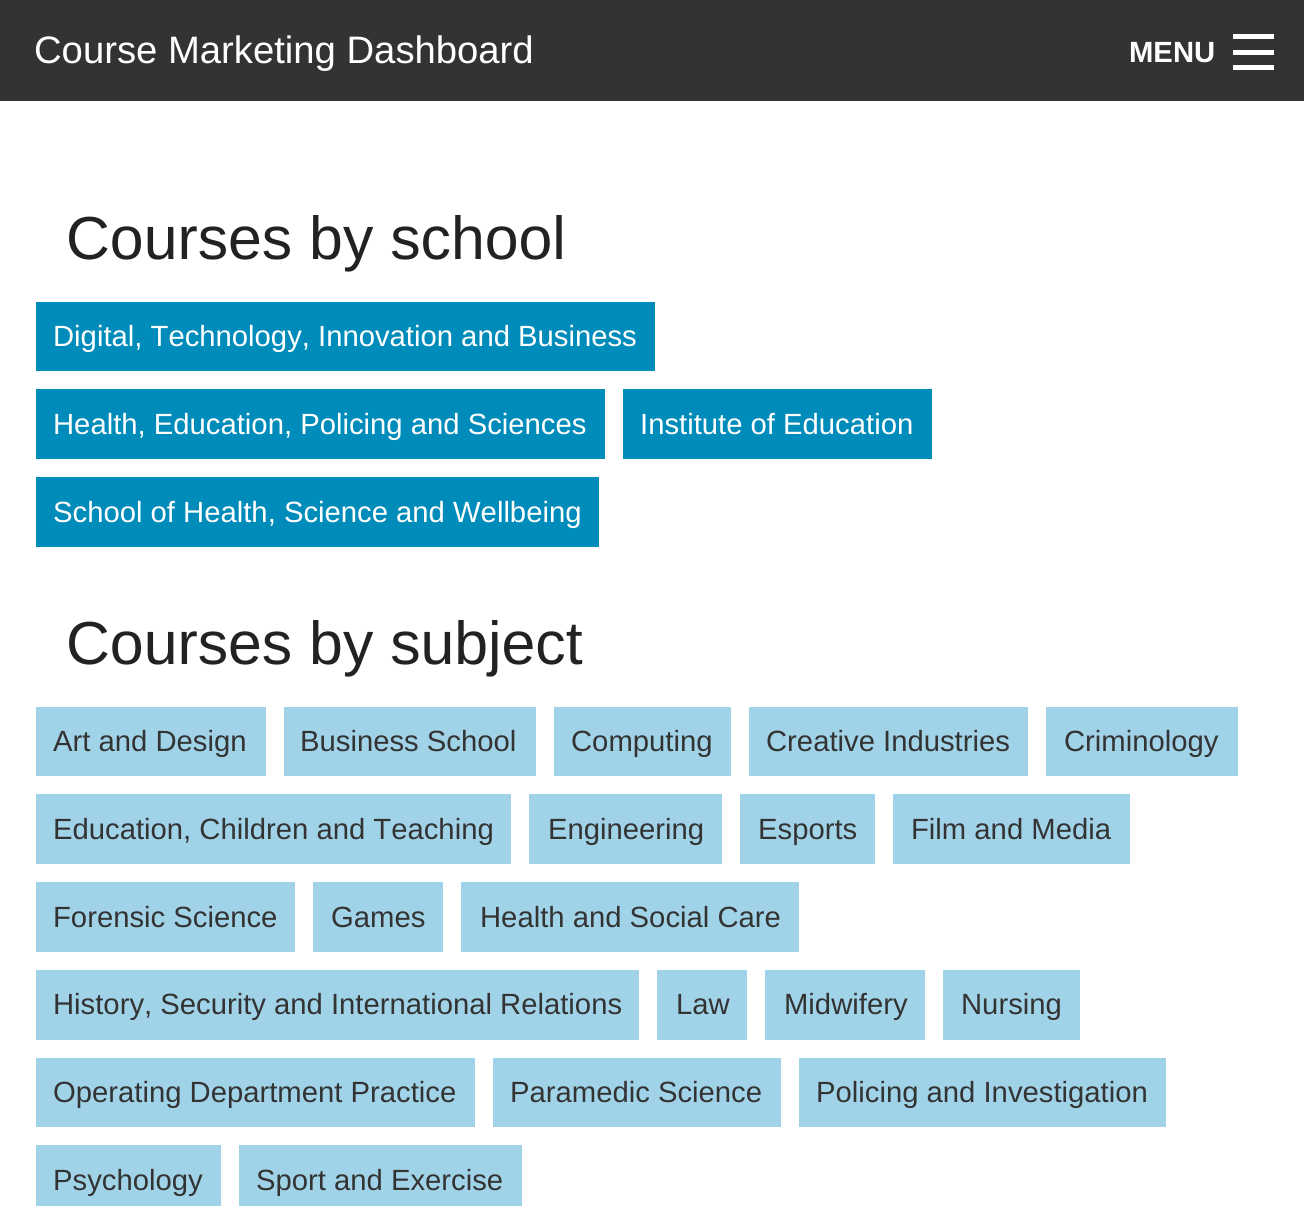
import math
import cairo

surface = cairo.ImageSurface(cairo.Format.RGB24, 1304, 1206)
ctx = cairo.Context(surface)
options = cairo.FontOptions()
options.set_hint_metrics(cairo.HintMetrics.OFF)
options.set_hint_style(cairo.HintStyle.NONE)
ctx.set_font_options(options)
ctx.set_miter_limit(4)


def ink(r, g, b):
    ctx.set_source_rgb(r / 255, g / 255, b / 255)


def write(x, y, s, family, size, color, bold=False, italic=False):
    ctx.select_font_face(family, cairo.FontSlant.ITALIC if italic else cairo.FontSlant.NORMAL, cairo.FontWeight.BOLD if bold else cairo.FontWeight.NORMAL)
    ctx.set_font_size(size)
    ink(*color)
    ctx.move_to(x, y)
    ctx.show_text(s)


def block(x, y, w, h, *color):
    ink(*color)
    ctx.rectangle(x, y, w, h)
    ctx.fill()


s1 = dict(family="Liberation Sans", size=38.25, color=(255, 255, 255))
s2 = dict(family="Liberation Sans", size=29.25, color=(255, 255, 255), bold=True)
s3 = dict(family="Liberation Sans", size=60.75, color=(34, 34, 34))
s4 = dict(family="Liberation Sans", size=29.25, color=(255, 255, 255))
s5 = dict(family="Liberation Sans", size=29.25, color=(51, 51, 51))

ink(255, 255, 255)
ctx.paint()
block(0, 0, 1304, 101, 51, 51, 51)
write(34, 63, "Course Marketing Dashboard", **s1)
write(1129, 62, "MENU", **s2)
block(1233, 65, 41, 5, 255, 255, 255)
block(1233, 50, 41, 5, 255, 255, 255)
block(1233, 34, 41, 5, 255, 255, 255)
write(66, 259, "Courses by school", **s3)
block(36, 302, 619, 69, 0, 140, 186)
write(53, 346, "Digital, Technology, Innovation and Business", **s4)
block(36, 389, 569, 70, 0, 140, 186)
write(53, 434, "Health, Education, Policing and Sciences", **s4)
block(623, 389, 309, 70, 0, 140, 186)
write(640, 434, "Institute of Education", **s4)
block(36, 477, 563, 70, 0, 140, 186)
write(53, 522, "School of Health, Science and Wellbeing", **s4)
write(66, 664, "Courses by subject", **s3)
block(36, 707, 230, 69, 160, 211, 232)
write(53, 751, "Art and Design", **s5)
block(284, 707, 252, 69, 160, 211, 232)
write(300, 751, "Business School", **s5)
block(554, 707, 177, 69, 160, 211, 232)
write(571, 751, "Computing", **s5)
block(749, 707, 279, 69, 160, 211, 232)
write(766, 751, "Creative Industries", **s5)
block(1046, 707, 192, 69, 160, 211, 232)
write(1064, 751, "Criminology", **s5)
block(36, 794, 475, 70, 160, 211, 232)
write(53, 839, "Education, Children and Teaching", **s5)
block(529, 794, 193, 70, 160, 211, 232)
write(548, 839, "Engineering", **s5)
block(740, 794, 135, 70, 160, 211, 232)
write(758, 839, "Esports", **s5)
block(893, 794, 237, 70, 160, 211, 232)
write(911, 839, "Film and Media", **s5)
block(36, 882, 259, 70, 160, 211, 232)
write(53, 927, "Forensic Science", **s5)
block(313, 882, 130, 70, 160, 211, 232)
write(331, 927, "Games", **s5)
block(461, 882, 338, 70, 160, 211, 232)
write(480, 927, "Health and Social Care", **s5)
block(36, 970, 603, 70, 160, 211, 232)
write(53, 1014, "History, Security and International Relations", **s5)
block(657, 970, 90, 70, 160, 211, 232)
write(676, 1014, "Law", **s5)
block(765, 970, 160, 70, 160, 211, 232)
write(784, 1014, "Midwifery", **s5)
block(943, 970, 137, 70, 160, 211, 232)
write(961, 1014, "Nursing", **s5)
block(36, 1058, 439, 69, 160, 211, 232)
write(53, 1102, "Operating Department Practice", **s5)
block(493, 1058, 288, 69, 160, 211, 232)
write(510, 1102, "Paramedic Science", **s5)
block(799, 1058, 367, 69, 160, 211, 232)
write(816, 1102, "Policing and Investigation", **s5)
block(36, 1145, 185, 61, 160, 211, 232)
write(53, 1190, "Psychology", **s5)
block(239, 1145, 283, 61, 160, 211, 232)
write(256, 1190, "Sport and Exercise", **s5)
surface.write_to_png("screenshot.png")
